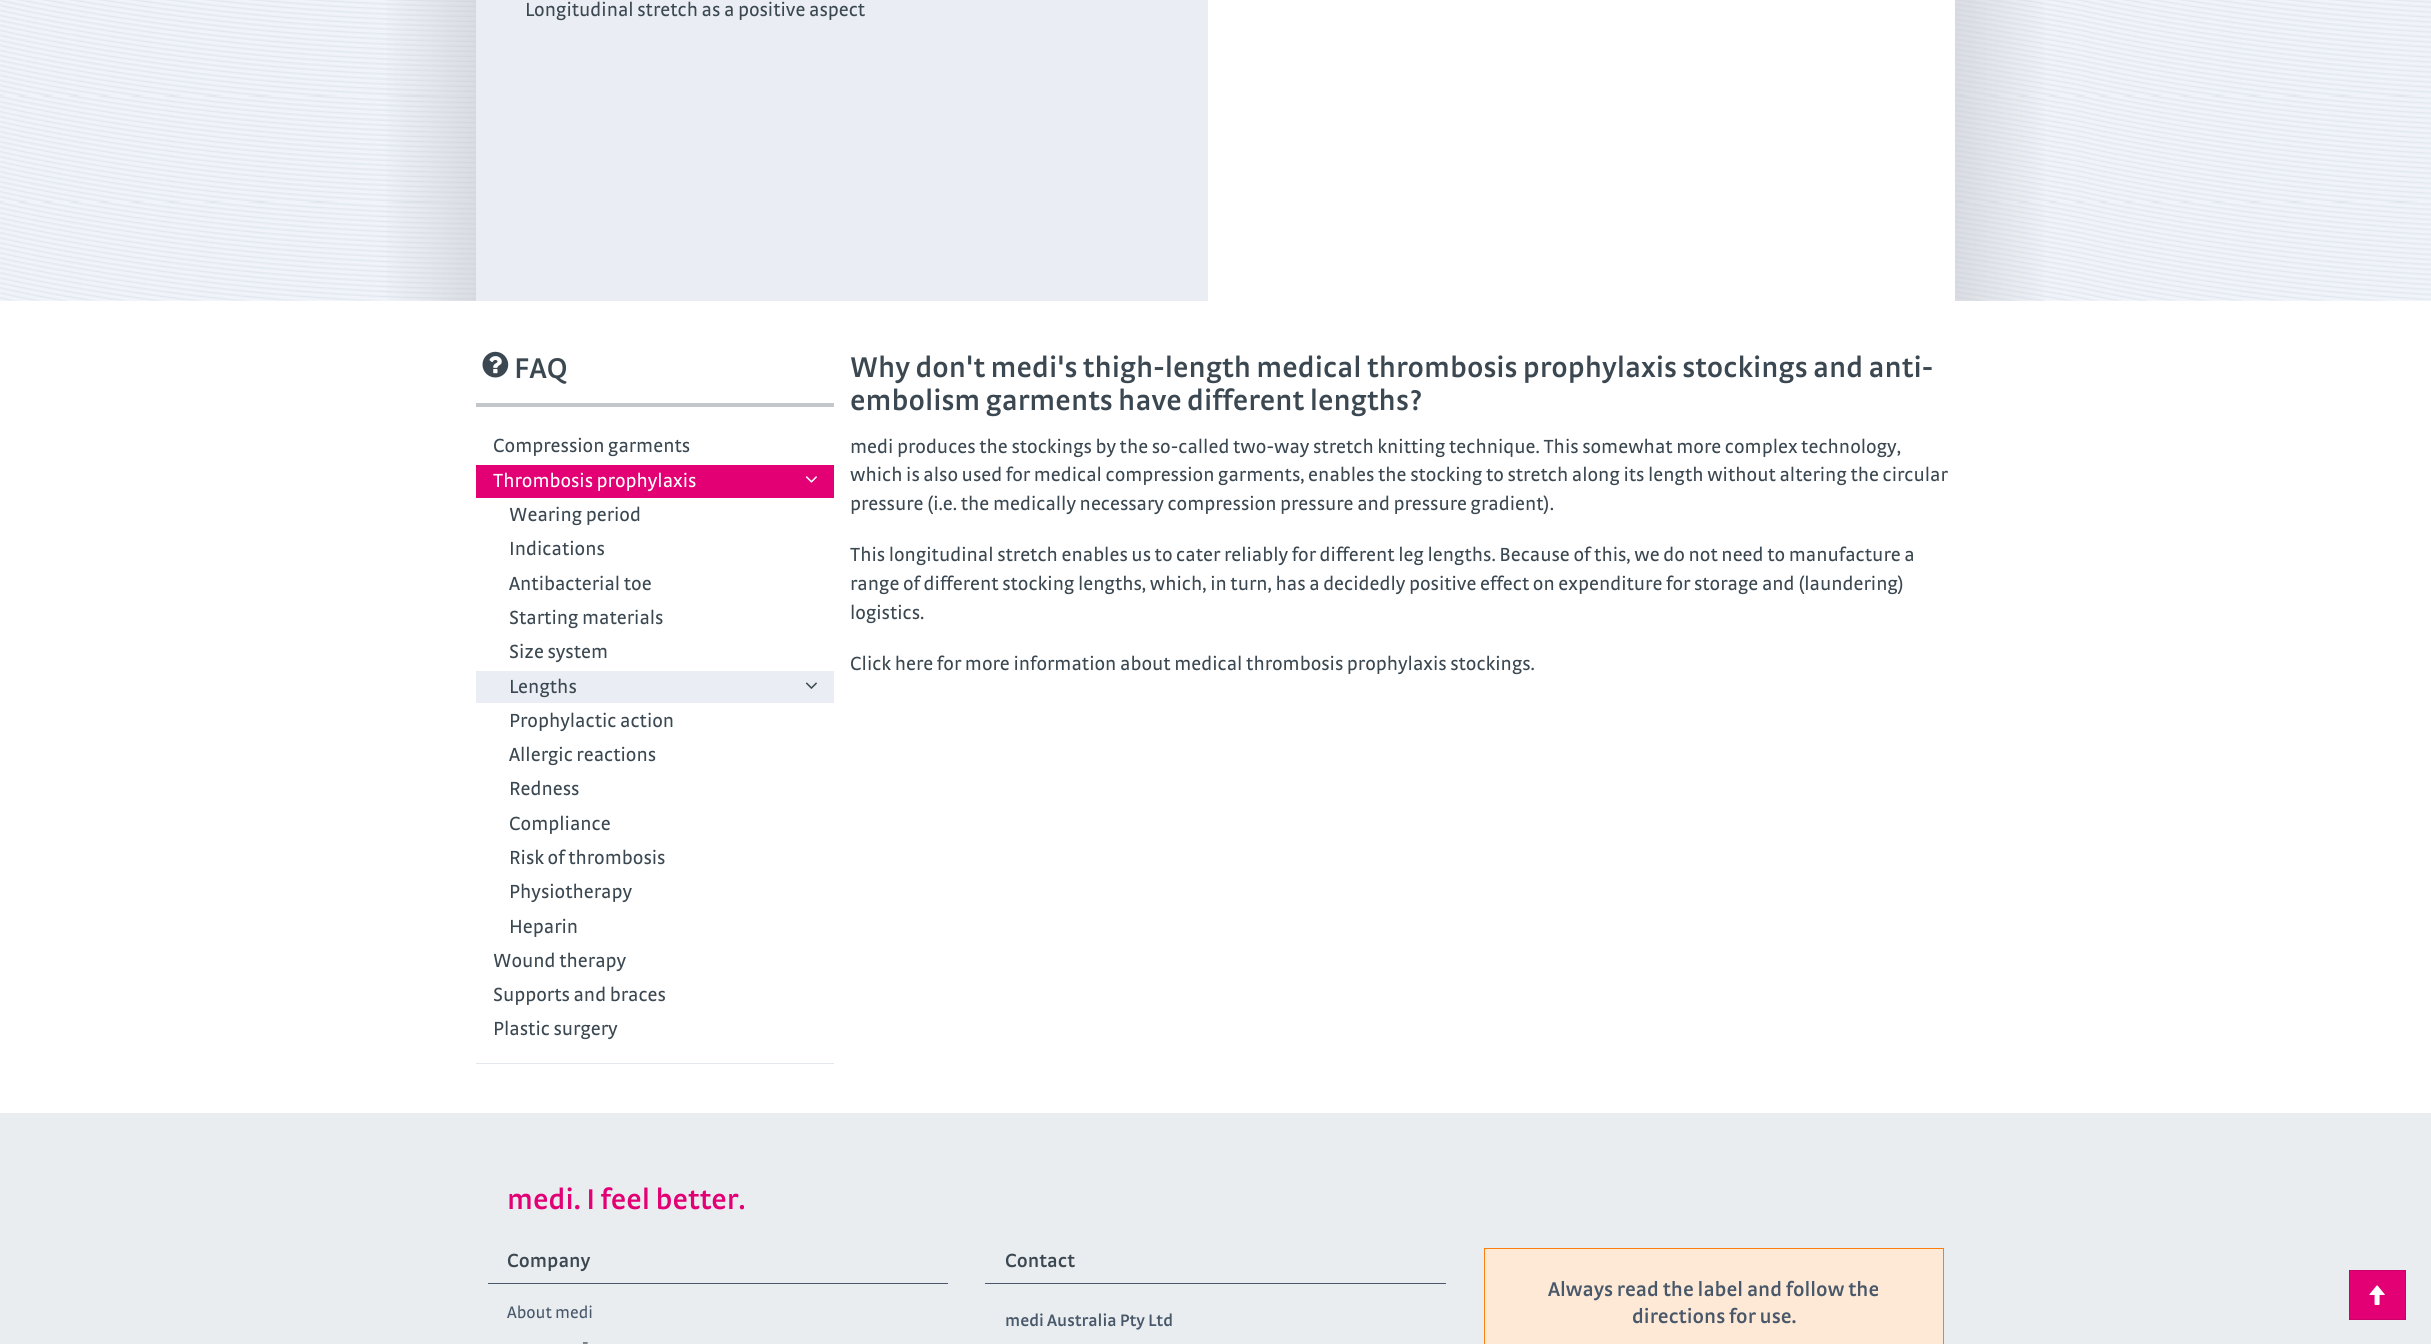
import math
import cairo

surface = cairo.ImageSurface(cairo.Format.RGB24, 2431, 1344)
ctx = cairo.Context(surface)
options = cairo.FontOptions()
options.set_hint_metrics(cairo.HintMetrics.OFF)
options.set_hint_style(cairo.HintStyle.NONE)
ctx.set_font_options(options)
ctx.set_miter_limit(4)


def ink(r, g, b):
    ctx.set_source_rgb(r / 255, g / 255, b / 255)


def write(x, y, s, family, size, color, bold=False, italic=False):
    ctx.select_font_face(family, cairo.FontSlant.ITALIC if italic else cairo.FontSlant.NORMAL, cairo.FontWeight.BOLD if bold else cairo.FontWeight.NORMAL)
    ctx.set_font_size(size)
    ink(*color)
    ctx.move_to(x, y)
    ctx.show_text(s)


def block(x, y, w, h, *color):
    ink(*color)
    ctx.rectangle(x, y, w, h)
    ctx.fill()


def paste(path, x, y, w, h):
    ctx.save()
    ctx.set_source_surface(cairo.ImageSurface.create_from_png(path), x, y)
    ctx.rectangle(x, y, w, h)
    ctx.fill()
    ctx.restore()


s1 = dict(family="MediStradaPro", size=20, color=(59, 72, 81))
s2 = dict(family="MediStradaPro SemiBold", size=30, color=(59, 72, 81))
s3 = dict(family="MediStradaPro", size=20, color=(255, 255, 255))
s4 = dict(family="MediStradaPro SemiBold", size=30, color=(226, 0, 116))
s5 = dict(family="MediStradaPro SemiBold", size=20, color=(59, 72, 81))
s6 = dict(family="MediStradaPro", size=17.5, color=(72, 88, 106))
s7 = dict(family="MediStradaPro SemiBold", size=17.5, color=(72, 88, 106))
s8 = dict(family="MediStradaPro SemiBold", size=21, color=(72, 88, 106))

ink(255, 255, 255)
ctx.paint()
paste("pic1.png", 0, 0, 2431, 301)
gradient = cairo.LinearGradient(346, 93, 476, 93)
gradient.add_color_stop_rgba(0, 0.765, 0.776, 0.796, 0)
gradient.add_color_stop_rgba(0.25, 0.765, 0.776, 0.796, 0)
gradient.add_color_stop_rgba(1, 0.765, 0.776, 0.796, 0.5)
ctx.set_source(gradient)
ctx.rectangle(387, 0, 89, 301)
ctx.fill()
block(1208, 0, 747, 301, 255, 255, 255)
block(476, 0, 732, 301, 234, 237, 243)
write(525, 16, "Longitudinal stretch as a positive aspect", **s1)
gradient = cairo.LinearGradient(1955, 93, 2085, 93)
gradient.add_color_stop_rgba(0, 0.765, 0.776, 0.796, 0.5)
gradient.add_color_stop_rgba(0.75, 0.765, 0.776, 0.796, 0)
gradient.add_color_stop_rgba(1, 0.765, 0.776, 0.796, 0)
ctx.set_source(gradient)
ctx.rectangle(1955, 0, 89, 301)
ctx.fill()
block(476, 1063, 358, 1, 228, 231, 237)
block(476, 403, 358, 4, 195, 198, 203)
paste("pic2.png", 482, 351, 27, 27)
write(514, 378, "FAQ", **s2)
write(493, 452, "Compression garments", **s1)
block(476, 465, 358, 33, 226, 0, 116)
write(493, 487, "Thrombosis prophylaxis", **s3)
paste("pic3.png", 805, 476, 12, 7)
write(509, 521, "Wearing period", **s1)
write(509, 555, "Indications", **s1)
write(509, 590, "Antibacterial toe", **s1)
write(509, 624, "Starting materials", **s1)
write(509, 658, "Size system", **s1)
block(476, 671, 358, 32, 234, 237, 243)
write(509, 693, "Lengths", **s1)
paste("pic4.png", 805, 682, 12, 7)
write(509, 727, "Prophylactic action", **s1)
write(509, 761, "Allergic reactions", **s1)
write(509, 795, "Redness", **s1)
write(509, 830, "Compliance", **s1)
write(509, 864, "Risk of thrombosis", **s1)
write(509, 898, "Physiotherapy", **s1)
write(509, 933, "Heparin", **s1)
write(493, 967, "Wound therapy", **s1)
write(493, 1001, "Supports and braces", **s1)
write(493, 1035, "Plastic surgery", **s1)
write(850, 377, "Why don't medi's thigh-length medical thrombosis prophylaxis stockings and anti-", **s2)
write(850, 410, "embolism garments have different lengths?", **s2)
write(850, 453, "medi produces the stockings by the so-called two-way stretch knitting technique. This somewhat more complex technology,", **s1)
write(850, 481, "which is also used for medical compression garments, enables the stocking to stretch along its length without altering the circular", **s1)
write(850, 510, "pressure (i.e. the medically necessary compression pressure and pressure gradient).", **s1)
write(850, 561, "This longitudinal stretch enables us to cater reliably for different leg lengths. Because of this, we do not need to manufacture a", **s1)
write(850, 590, "range of different stocking lengths, which, in turn, has a decidedly positive effect on expenditure for storage and (laundering)", **s1)
write(850, 619, "logistics.", **s1)
write(850, 670, "Click here for more information about medical thrombosis prophylaxis stockings.", **s1)
block(0, 1113, 2431, 231, 233, 237, 240)
write(507, 1209, "medi. I feel better.", **s4)
block(488, 1283, 460, 1, 72, 88, 106)
write(507, 1267, "Company", **s5)
write(507, 1318, "About medi", **s6)
write(582, 1348, "-", **s6)
block(985, 1283, 461, 1, 72, 88, 106)
write(1005, 1267, "Contact", **s5)
write(1005, 1326, "medi Australia Pty Ltd", **s7)
ink(254, 233, 214)
ctx.rectangle(1484.5, 1248.5, 459, 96)
ctx.fill_preserve()
ink(252, 126, 12)
ctx.set_line_width(1)
ctx.stroke()
write(1548, 1296, "Always read the label and follow the", **s8)
write(1632, 1323, "directions for use.", **s8)
ink(226, 0, 116)
ctx.rectangle(2349.5, 1270.5, 56, 49)
ctx.fill_preserve()
ink(201, 0, 103)
ctx.stroke()
paste("pic5.png", 2369, 1285, 16, 20)
surface.write_to_png("screenshot.png")
